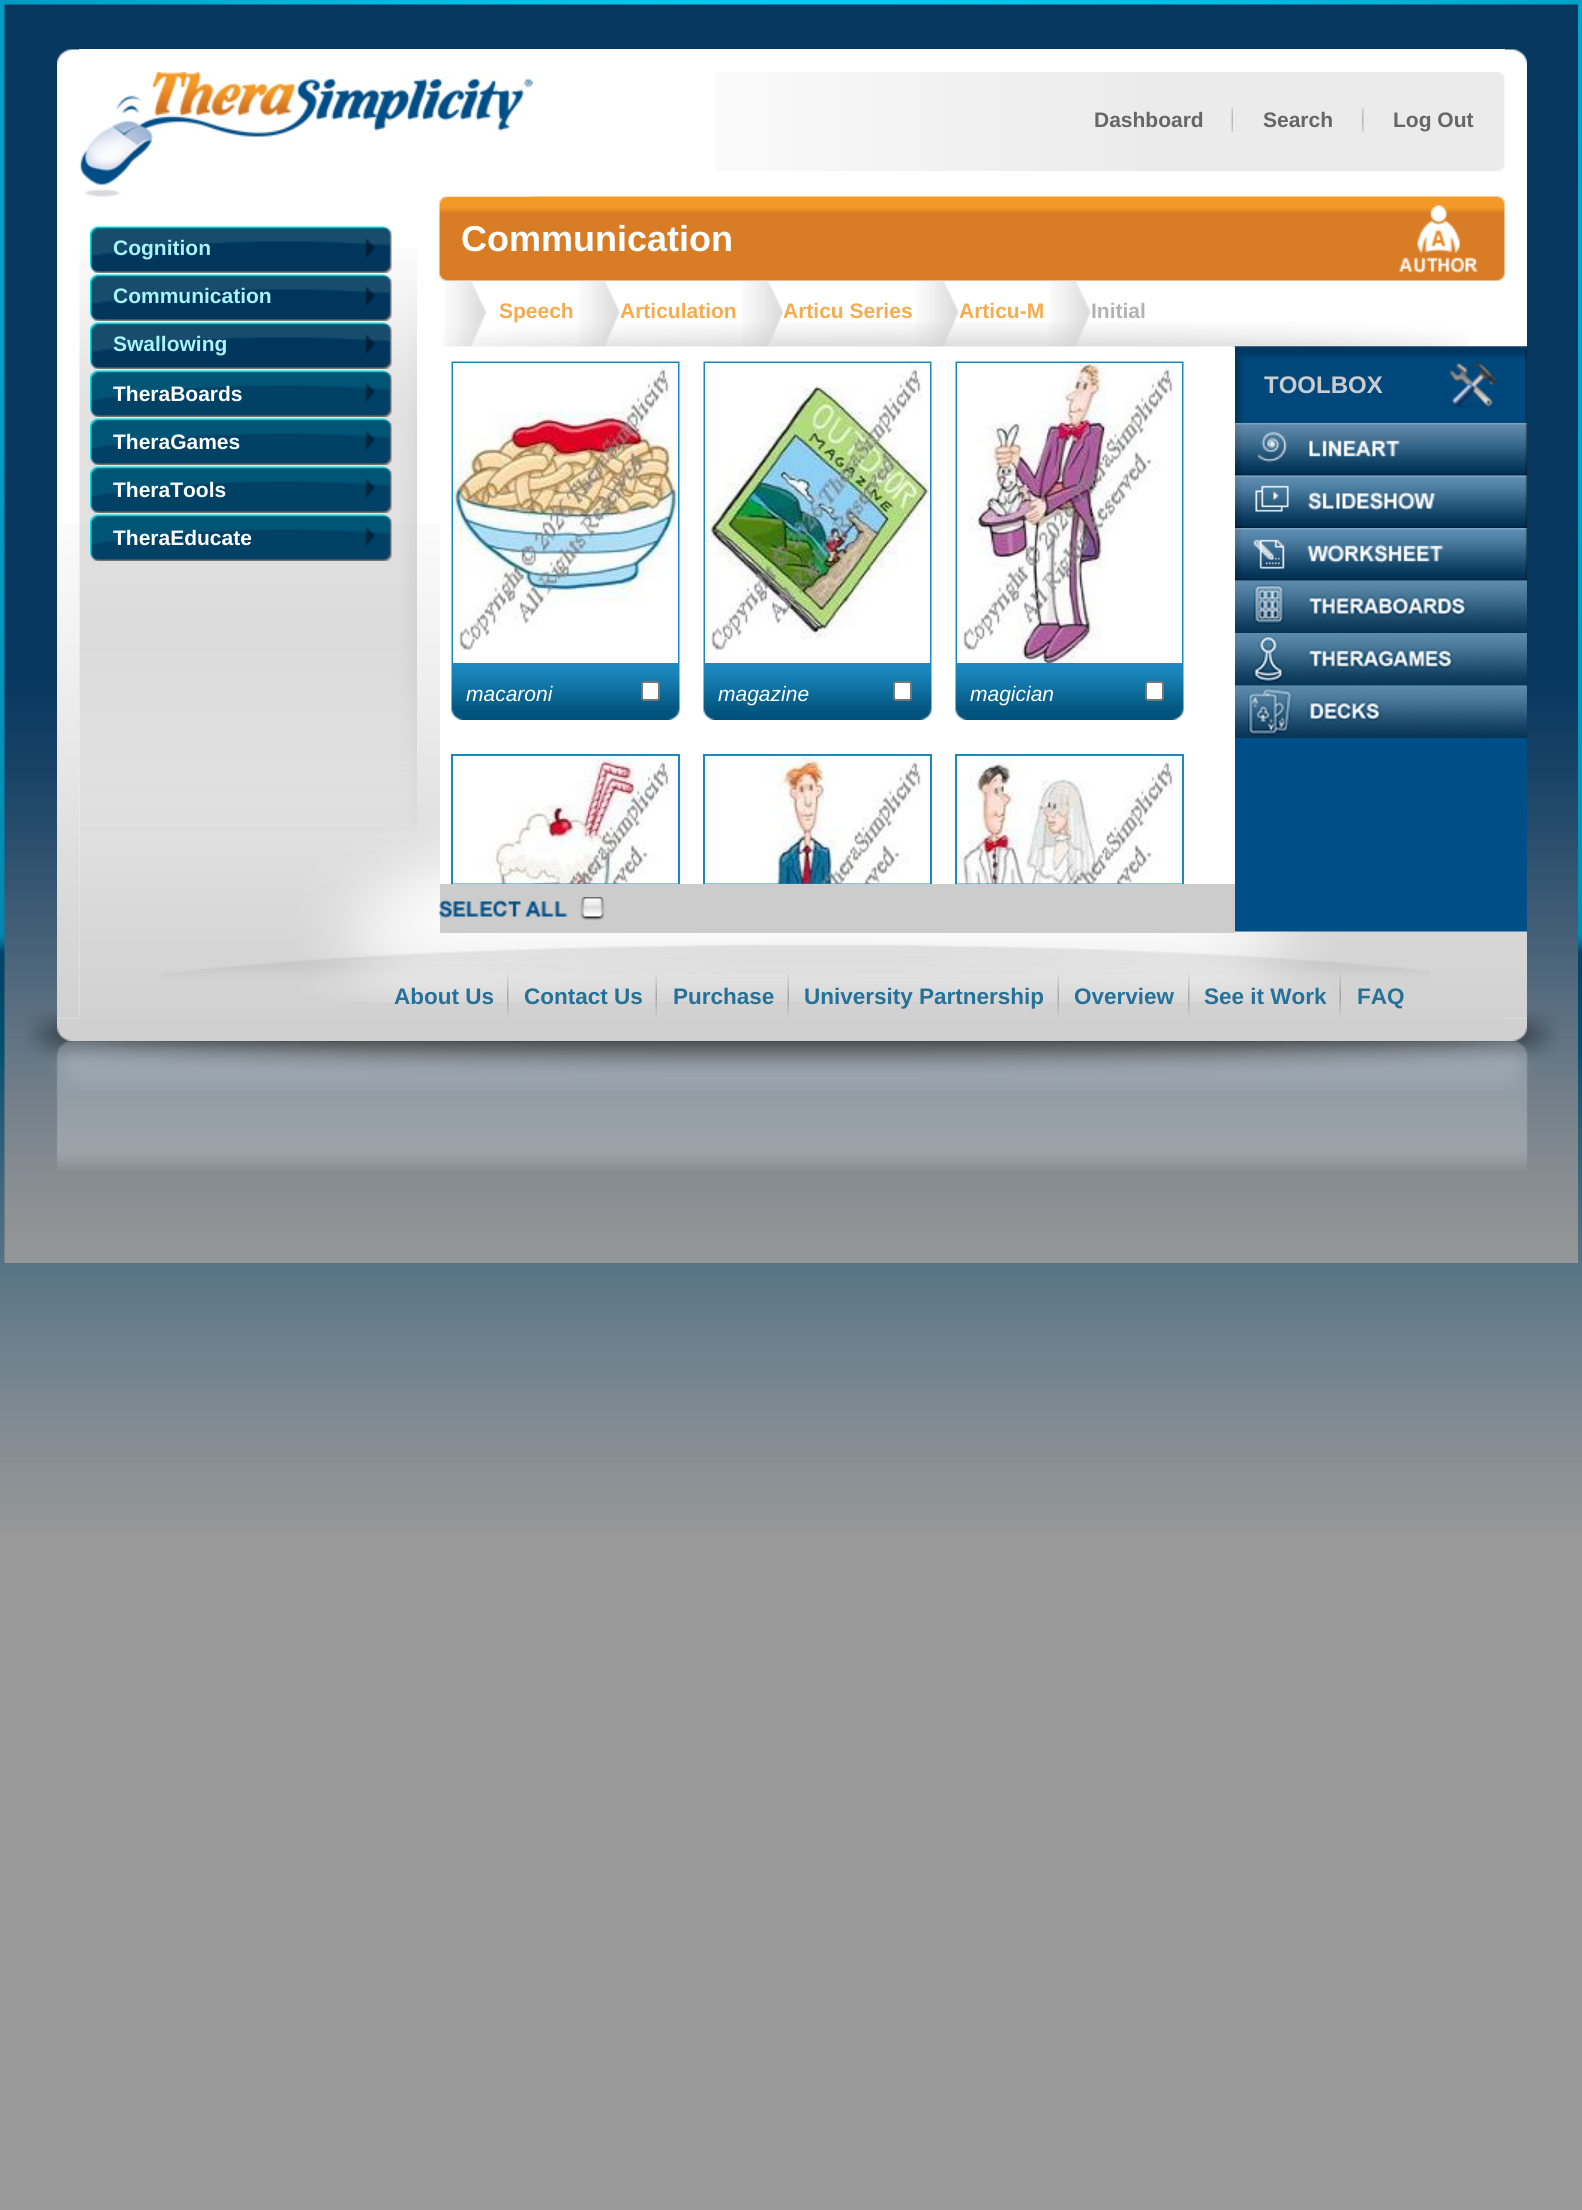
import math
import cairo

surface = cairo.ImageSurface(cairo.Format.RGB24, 1582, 2210)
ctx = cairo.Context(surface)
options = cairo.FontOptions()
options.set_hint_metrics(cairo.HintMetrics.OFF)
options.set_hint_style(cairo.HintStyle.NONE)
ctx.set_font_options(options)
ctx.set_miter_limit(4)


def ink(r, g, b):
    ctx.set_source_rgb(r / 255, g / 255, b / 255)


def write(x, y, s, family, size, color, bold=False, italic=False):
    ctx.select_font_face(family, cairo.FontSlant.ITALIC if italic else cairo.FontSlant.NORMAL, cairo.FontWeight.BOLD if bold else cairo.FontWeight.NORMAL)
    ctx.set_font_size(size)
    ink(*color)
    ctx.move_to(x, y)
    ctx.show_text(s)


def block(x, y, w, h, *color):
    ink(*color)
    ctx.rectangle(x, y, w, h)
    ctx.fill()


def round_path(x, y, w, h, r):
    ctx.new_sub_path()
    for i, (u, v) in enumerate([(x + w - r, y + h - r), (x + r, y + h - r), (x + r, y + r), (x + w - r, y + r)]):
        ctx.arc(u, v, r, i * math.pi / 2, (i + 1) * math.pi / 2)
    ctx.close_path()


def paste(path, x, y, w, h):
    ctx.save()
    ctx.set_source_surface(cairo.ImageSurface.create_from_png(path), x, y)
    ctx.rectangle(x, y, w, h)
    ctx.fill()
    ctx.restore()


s1 = dict(family="Liberation Sans", size=21, color=(102, 102, 102), bold=True)
s2 = dict(family="Liberation Sans", size=21, color=(167, 244, 247), bold=True)
s3 = dict(family="Liberation Sans", size=21, color=(255, 255, 255), bold=True)
s4 = dict(family="Liberation Sans", size=36, color=(255, 255, 255), bold=True)
s5 = dict(family="Liberation Sans", size=21, color=(245, 172, 80), bold=True)
s6 = dict(family="Liberation Sans", size=21, color=(178, 178, 178), bold=True)
s7 = dict(family="Liberation Sans", size=24, color=(204, 204, 204), bold=True)
s8 = dict(family="Liberation Sans", size=21, color=(255, 255, 255), italic=True)
s9 = dict(family="Liberation Sans", size=22.5, color=(37, 113, 151), bold=True)

ink(153, 153, 153)
ctx.paint()
paste("pic1.png", 0, 0, 1582, 1530)
paste("pic2.png", 4, 4, 1574, 1259)
paste("pic3.png", 57, 49, 22, 23)
block(79, 49, 1426, 23, 255, 255, 255)
paste("pic4.png", 1505, 49, 22, 23)
paste("pic56.png", 25, 1009, 1534, 162)
block(57, 72, 1470, 947, 255, 255, 255)
paste("pic5.png", 57, 524, 23, 495)
paste("pic6.png", 79, 524, 1448, 495)
paste("pic7.png", 715, 72, 790, 99)
paste("pic19.png", 439, 196, 1066, 85)
paste("pic8.png", 79, 72, 454, 125)
paste("pic9.png", 1231, 108, 2, 24)
write(1094, 127, "Dashboard", **s1)
paste("pic10.png", 1362, 108, 2, 24)
write(1263, 127, "Search", **s1)
write(1393, 127, "Log Out", **s1)
paste("pic11.png", 160, 817, 1270, 185)
paste("pic12.png", 79, 248, 338, 583)
paste("pic13.png", 90, 226, 302, 47)
write(113, 255, "Cognition", **s2)
paste("pic14.png", 90, 274, 302, 47)
write(113, 303, "Communication", **s2)
paste("pic15.png", 90, 322, 302, 47)
write(113, 351, "Swallowing", **s2)
paste("pic16.png", 90, 370, 302, 47)
write(113, 401, "TheraBoards", **s3)
paste("pic17.png", 90, 418, 302, 47)
write(113, 449, "TheraGames", **s3)
paste("pic17.png", 90, 466, 302, 47)
write(113, 497, "TheraTools", **s3)
paste("pic18.png", 90, 514, 302, 47)
write(113, 545, "TheraEducate", **s3)
write(461, 251, "Communication", **s4)
paste("pic20.png", 1399, 205, 79, 68)
paste("pic21.png", 442, 322, 1027, 25)
paste("pic22.png", 445, 280, 41, 67)
write(499, 318, "Speech", **s5)
paste("pic23.png", 578, 280, 42, 67)
write(620, 318, "Articulation", **s5)
paste("pic24.png", 742, 280, 41, 67)
write(783, 318, "Articu Series", **s5)
paste("pic25.png", 916, 280, 43, 67)
write(959, 318, "Articu-M", **s5)
paste("pic26.png", 1049, 280, 42, 67)
write(1091, 318, "Initial", **s6)
paste("pic27.png", 1234, 346, 293, 586)
paste("pic28.png", 1234, 346, 293, 77)
write(1264, 393, "TOOLBOX", **s7)
paste("pic29.png", 1235, 475, 292, 1)
paste("pic31.png", 1235, 475, 292, 1)
paste("pic30.png", 1235, 423, 292, 53)
paste("pic32.png", 1235, 475, 292, 53)
paste("pic33.png", 1235, 528, 292, 53)
paste("pic35.png", 1235, 580, 292, 53)
paste("pic34.png", 1235, 529, 292, 52)
paste("pic36.png", 1235, 580, 292, 53)
paste("pic33.png", 1235, 633, 292, 53)
paste("pic35.png", 1235, 685, 292, 53)
paste("pic37.png", 1235, 633, 292, 53)
paste("pic38.png", 1235, 685, 292, 53)
block(440, 347, 795, 537, 255, 255, 255)
paste("pic39.png", 451, 361, 229, 359)
paste("pic40.png", 453, 363, 225, 300)
write(466, 701, "macaroni", **s8)
round_path(642, 682, 17, 18, 2)
ctx.fill_preserve()
ink(118, 118, 118)
ctx.stroke()
paste("pic41.png", 703, 361, 229, 359)
paste("pic42.png", 705, 363, 225, 300)
write(718, 701, "magazine", **s8)
round_path(894, 682, 17, 18, 2)
ctx.fill_preserve()
ink(118, 118, 118)
ctx.stroke()
paste("pic39.png", 955, 361, 229, 359)
paste("pic43.png", 957, 363, 225, 300)
write(970, 701, "magician", **s8)
round_path(1146, 682, 17, 18, 2)
ctx.fill_preserve()
ink(118, 118, 118)
ctx.stroke()
block(451, 754, 229, 130, 27, 136, 190)
paste("pic44.png", 453, 756, 225, 128)
block(703, 754, 229, 130, 27, 136, 190)
paste("pic45.png", 705, 756, 225, 128)
block(955, 754, 229, 130, 27, 136, 190)
paste("pic46.png", 957, 756, 225, 128)
block(440, 884, 795, 49, 204, 204, 204)
paste("pic47.png", 439, 897, 166, 24)
paste("pic48.png", 507, 973, 2, 44)
write(394, 1004, "About Us", **s9)
paste("pic49.png", 655, 973, 2, 44)
write(524, 1004, "Contact Us", **s9)
paste("pic50.png", 787, 973, 2, 44)
write(673, 1004, "Purchase", **s9)
paste("pic51.png", 1057, 973, 2, 44)
write(804, 1004, "University Partnership", **s9)
paste("pic52.png", 1188, 973, 2, 44)
write(1074, 1004, "Overview", **s9)
paste("pic53.png", 1339, 973, 2, 44)
write(1204, 1004, "See it Work", **s9)
write(1357, 1004, "FAQ", **s9)
paste("pic54.png", 57, 1018, 22, 23)
block(79, 1018, 1426, 23, 208, 208, 208)
paste("pic55.png", 1505, 1018, 22, 23)
surface.write_to_png("screenshot.png")
